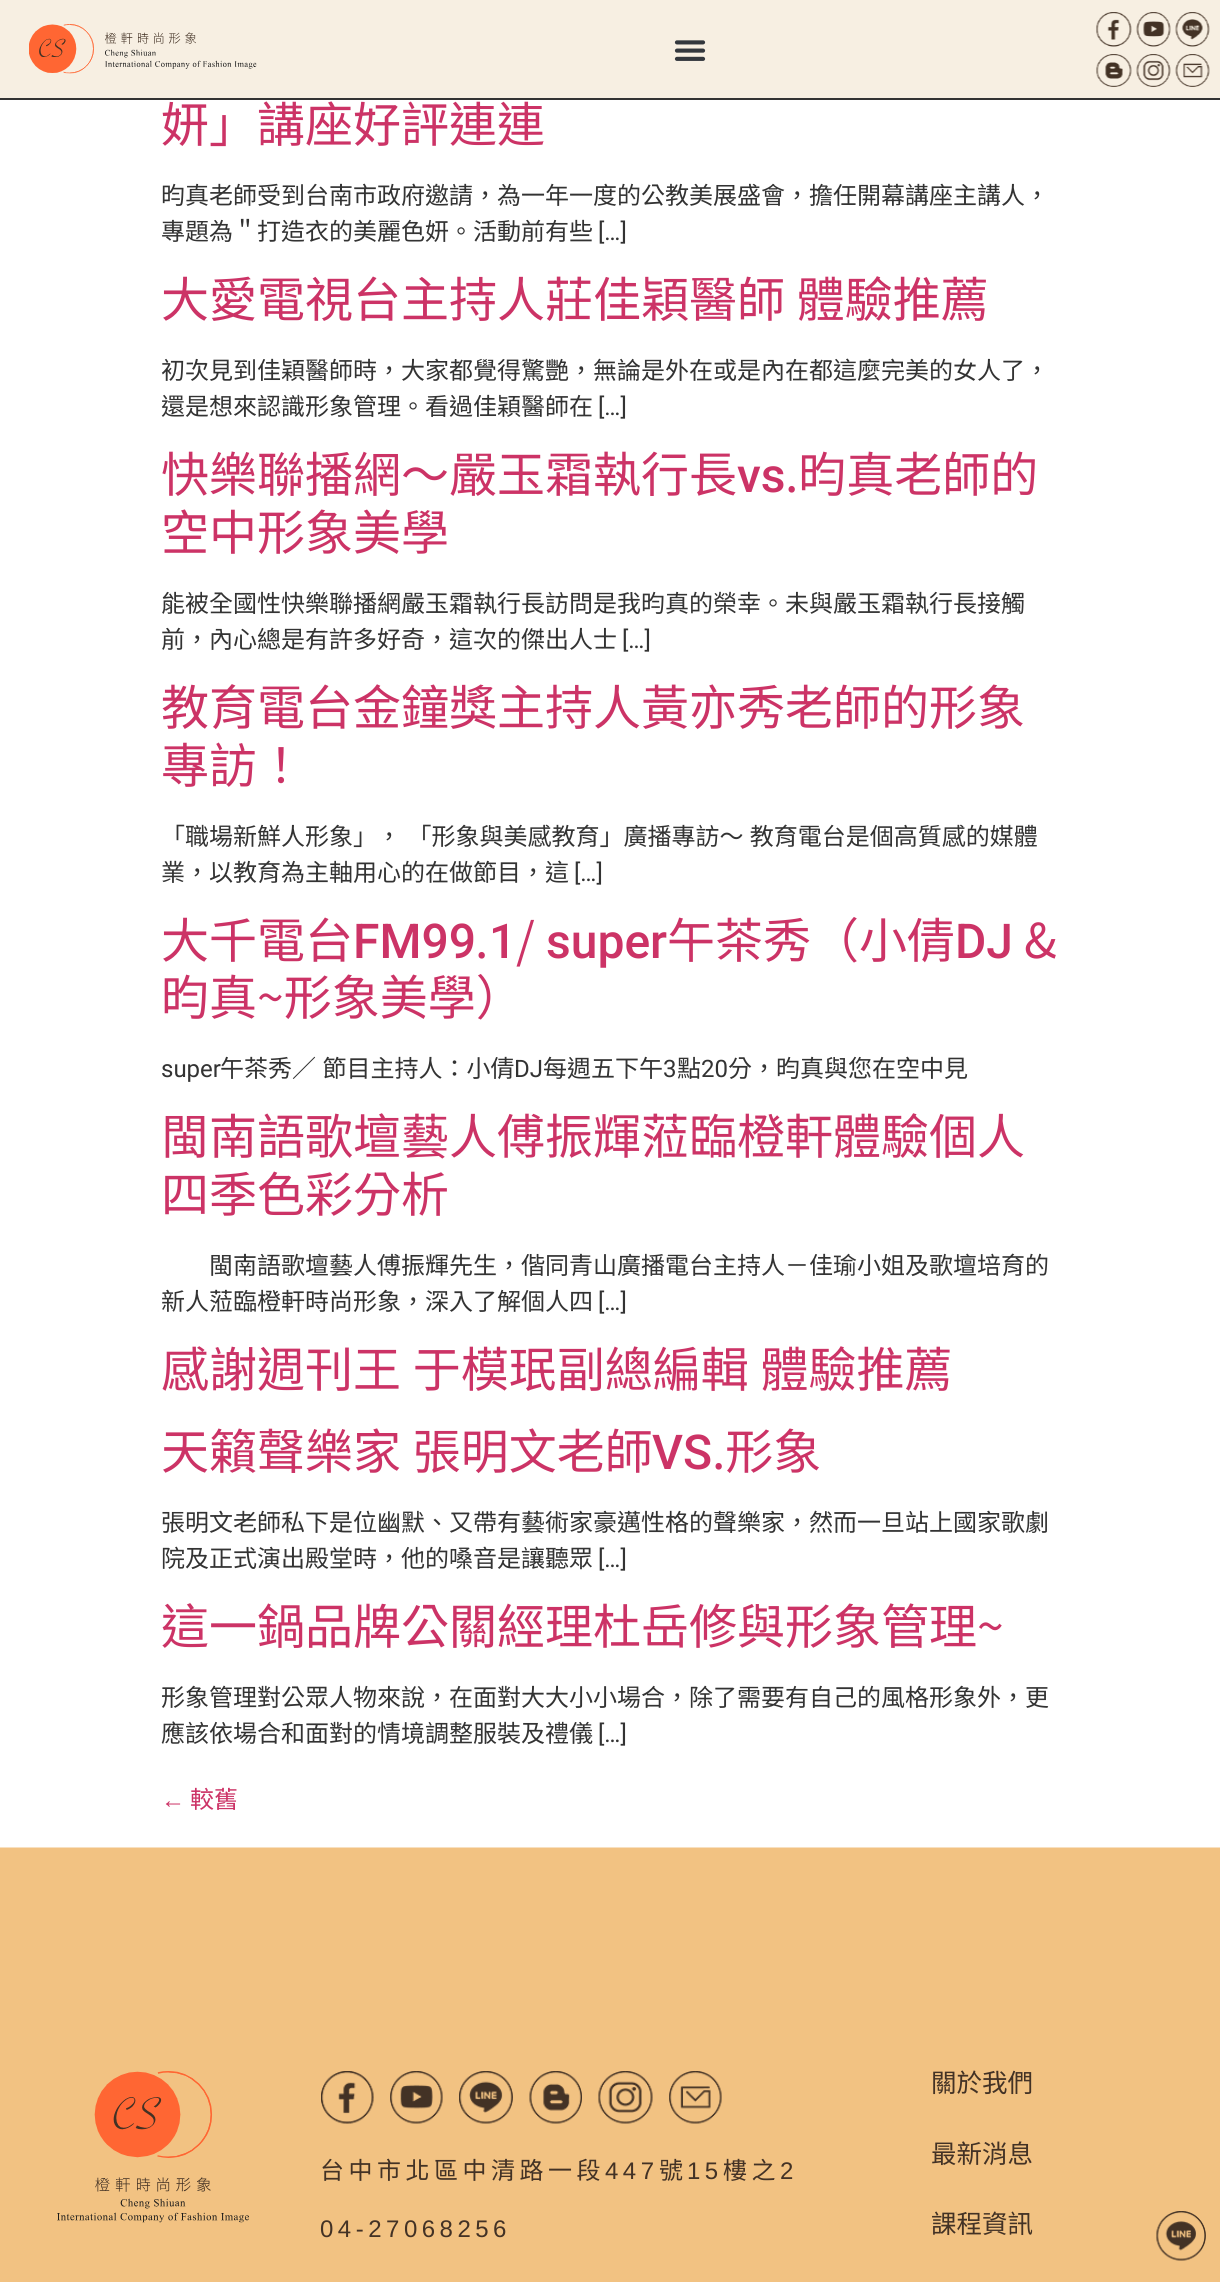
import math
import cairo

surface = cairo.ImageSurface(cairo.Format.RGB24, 1220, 2282)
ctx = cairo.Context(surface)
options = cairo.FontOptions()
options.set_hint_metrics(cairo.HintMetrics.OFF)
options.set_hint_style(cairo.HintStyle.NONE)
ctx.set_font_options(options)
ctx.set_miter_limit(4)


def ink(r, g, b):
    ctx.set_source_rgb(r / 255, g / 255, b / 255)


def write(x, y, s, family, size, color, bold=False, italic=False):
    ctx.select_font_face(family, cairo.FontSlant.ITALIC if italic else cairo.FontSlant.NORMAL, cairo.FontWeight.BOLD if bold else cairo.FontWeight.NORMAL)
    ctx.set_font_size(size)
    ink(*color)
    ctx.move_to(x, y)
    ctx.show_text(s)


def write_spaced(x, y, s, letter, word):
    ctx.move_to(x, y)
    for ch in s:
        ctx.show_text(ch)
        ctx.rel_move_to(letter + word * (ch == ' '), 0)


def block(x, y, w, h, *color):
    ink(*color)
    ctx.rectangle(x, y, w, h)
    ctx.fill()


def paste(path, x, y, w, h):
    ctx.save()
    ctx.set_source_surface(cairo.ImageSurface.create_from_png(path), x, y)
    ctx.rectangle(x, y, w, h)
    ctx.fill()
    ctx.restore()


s1 = dict(family="Noto Sans CJK TC", size=48, color=(204, 51, 102))
s2 = dict(family="Noto Sans CJK TC", size=24, color=(51, 51, 51))
s3 = dict(family="Roboto", size=24, color=(51, 51, 51))
s4 = dict(family="Roboto Medium", size=48, color=(204, 51, 102))
s5 = dict(family="Liberation Sans", size=24, color=(204, 51, 102))
s6 = dict(family="Noto Sans CJK TC", size=24, color=(204, 51, 102))
s7 = dict(family="Noto Sans CJK TC", size=25.5, color=(67, 50, 37))

ink(255, 255, 255)
ctx.paint()
block(0, 0, 1220, 98, 247, 239, 226)
block(0, 98, 1220, 2, 51, 51, 51)
paste("pic1.png", 29, 24, 228, 50)
paste("pic2.png", 674, 40, 32, 21)
paste("pic3.png", 1096, 12, 36, 35)
paste("pic4.png", 1136, 12, 35, 35)
paste("pic5.png", 1175, 12, 35, 35)
paste("pic6.png", 1096, 54, 36, 33)
paste("pic7.png", 1136, 54, 35, 33)
paste("pic8.png", 1175, 54, 35, 33)
write(161, 142, "妍」講座好評連連", **s1)
write(161, 204, "昀真老師受到台南市政府邀請，為一年一度的公教美展盛會，擔任開幕講座主講人，", **s2)
write(161, 240, "專題為＂打造衣的美麗色妍。活動前有些", **s2)
write(598, 240, "[…]", **s3)
ctx.select_font_face("Noto Sans CJK TC")
ctx.set_font_size(48)
ink(204, 51, 102)
write_spaced(161, 317, "大愛電視台主持人莊佳穎醫師 體驗推薦", 0, 1)
write(161, 379, "初次見到佳穎醫師時，大家都覺得驚艷，無論是外在或是內在都這麼完美的女人了，", **s2)
write(161, 415, "還是想來認識形象管理。看過佳穎醫師在", **s2)
write(598, 415, "[…]", **s3)
write(161, 492, "快樂聯播網～嚴玉霜執行長", **s1)
write(737, 492, "vs", **s4)
write(785, 492, ".昀真老師的", **s1)
write(161, 550, "空中形象美學", **s1)
write(161, 612, "能被全國性快樂聯播網嚴玉霜執行長訪問是我昀真的榮幸。未與嚴玉霜執行長接觸", **s2)
write(161, 648, "前，內心總是有許多好奇，這次的傑出人士", **s2)
write(622, 648, "[…]", **s3)
write(161, 725, "教育電台金鐘獎主持人黃亦秀老師的形象", **s1)
write(161, 783, "專訪！", **s1)
ctx.set_font_size(24)
ink(51, 51, 51)
write_spaced(161, 845, "「職場新鮮人形象」， 「形象與美感教育」廣播專訪～ 教育電台是個高質感的媒體", 0, 1)
write(161, 881, "業，以教育為主軸用心的在做節目，這", **s2)
write(574, 881, "[…]", **s3)
write(161, 958, "大千電台", **s1)
write(353, 958, "FM99", **s4)
write(475, 958, ".", **s1)
write(489, 958, "1", **s4)
write(516, 958, "/", **s1)
write(546, 958, "super", **s4)
write(667, 958, "午茶秀（小倩", **s1)
write(955, 958, "DJ", **s4)
write(1024, 958, "&", **s1)
write(161, 1015, "昀真~形象美學）", **s1)
write(161, 1077, "super", **s3)
ctx.select_font_face("Noto Sans CJK TC")
write_spaced(220, 1077, "午茶秀／ 節目主持人：小倩", 0, 1)
write(514, 1077, "DJ", **s3)
write(543, 1077, "每週五下午", **s2)
write(663, 1077, "3", **s3)
write(677, 1077, "點", **s2)
write(701, 1077, "20", **s3)
write(728, 1077, "分，昀真與您在空中見", **s2)
write(161, 1154, "閩南語歌壇藝人傅振輝蒞臨橙軒體驗個人", **s1)
write(161, 1212, "四季色彩分析", **s1)
write(209, 1274, "閩南語歌壇藝人傅振輝先生，偕同青山廣播電台主持人－佳瑜小姐及歌壇培育的", **s2)
write(161, 1310, "新人蒞臨橙軒時尚形象，深入了解個人四", **s2)
write(598, 1310, "[…]", **s3)
ctx.select_font_face("Noto Sans CJK TC")
ctx.set_font_size(48)
ink(204, 51, 102)
write_spaced(161, 1387, "感謝週刊王 于模珉副總編輯 體驗推薦", 0, 1)
write_spaced(161, 1469, "天籟聲樂家 張明文老師", 0, 1)
write(652, 1469, "VS", **s4)
write(712, 1469, ".形象", **s1)
write(161, 1531, "張明文老師私下是位幽默、又帶有藝術家豪邁性格的聲樂家，然而一旦站上國家歌劇", **s2)
write(161, 1567, "院及正式演出殿堂時，他的嗓音是讓聽眾", **s2)
write(598, 1567, "[…]", **s3)
write(161, 1644, "這一鍋品牌公關經理杜岳修與形象管理~", **s1)
write(161, 1706, "形象管理對公眾人物來說，在面對大大小小場合，除了需要有自己的風格形象外，更", **s2)
write(161, 1742, "應該依場合和面對的情境調整服裝及禮儀", **s2)
write(598, 1742, "[…]", **s3)
write(161, 1808, "←", **s5)
write(190, 1808, "較舊", **s6)
block(0, 1848, 1220, 434, 242, 194, 130)
block(0, 1847, 1220, 1, 248, 224, 192)
write(931, 2092, "關於我們", **s7)
write(931, 2163, "最新消息", **s7)
write(931, 2233, "課程資訊", **s7)
paste("pic9.png", 57, 2071, 192, 152)
paste("pic10.png", 1156, 2211, 50, 50)
paste("pic11.png", 321, 2071, 53, 53)
paste("pic12.png", 390, 2071, 53, 53)
paste("pic13.png", 459, 2071, 54, 53)
paste("pic14.png", 529, 2071, 53, 53)
paste("pic15.png", 598, 2071, 55, 53)
paste("pic16.png", 669, 2071, 53, 53)
ctx.set_font_size(24)
write_spaced(320, 2179, "台中市北區中清路一段", 4.5, 0)
ctx.select_font_face("Liberation Sans")
write_spaced(605, 2179, "447", 4.5, 0)
ctx.select_font_face("Noto Sans CJK TC")
write_spaced(659, 2179, "號", 4.5, 0)
ctx.select_font_face("Liberation Sans")
write_spaced(687, 2179, "15", 4.5, 0)
ctx.select_font_face("Noto Sans CJK TC")
write_spaced(723, 2179, "樓之", 4.5, 0)
ctx.select_font_face("Liberation Sans")
write_spaced(780, 2179, "2", 4.5, 0)
write_spaced(320, 2237, "04-27068256", 4.5, 0)
surface.write_to_png("screenshot.png")
